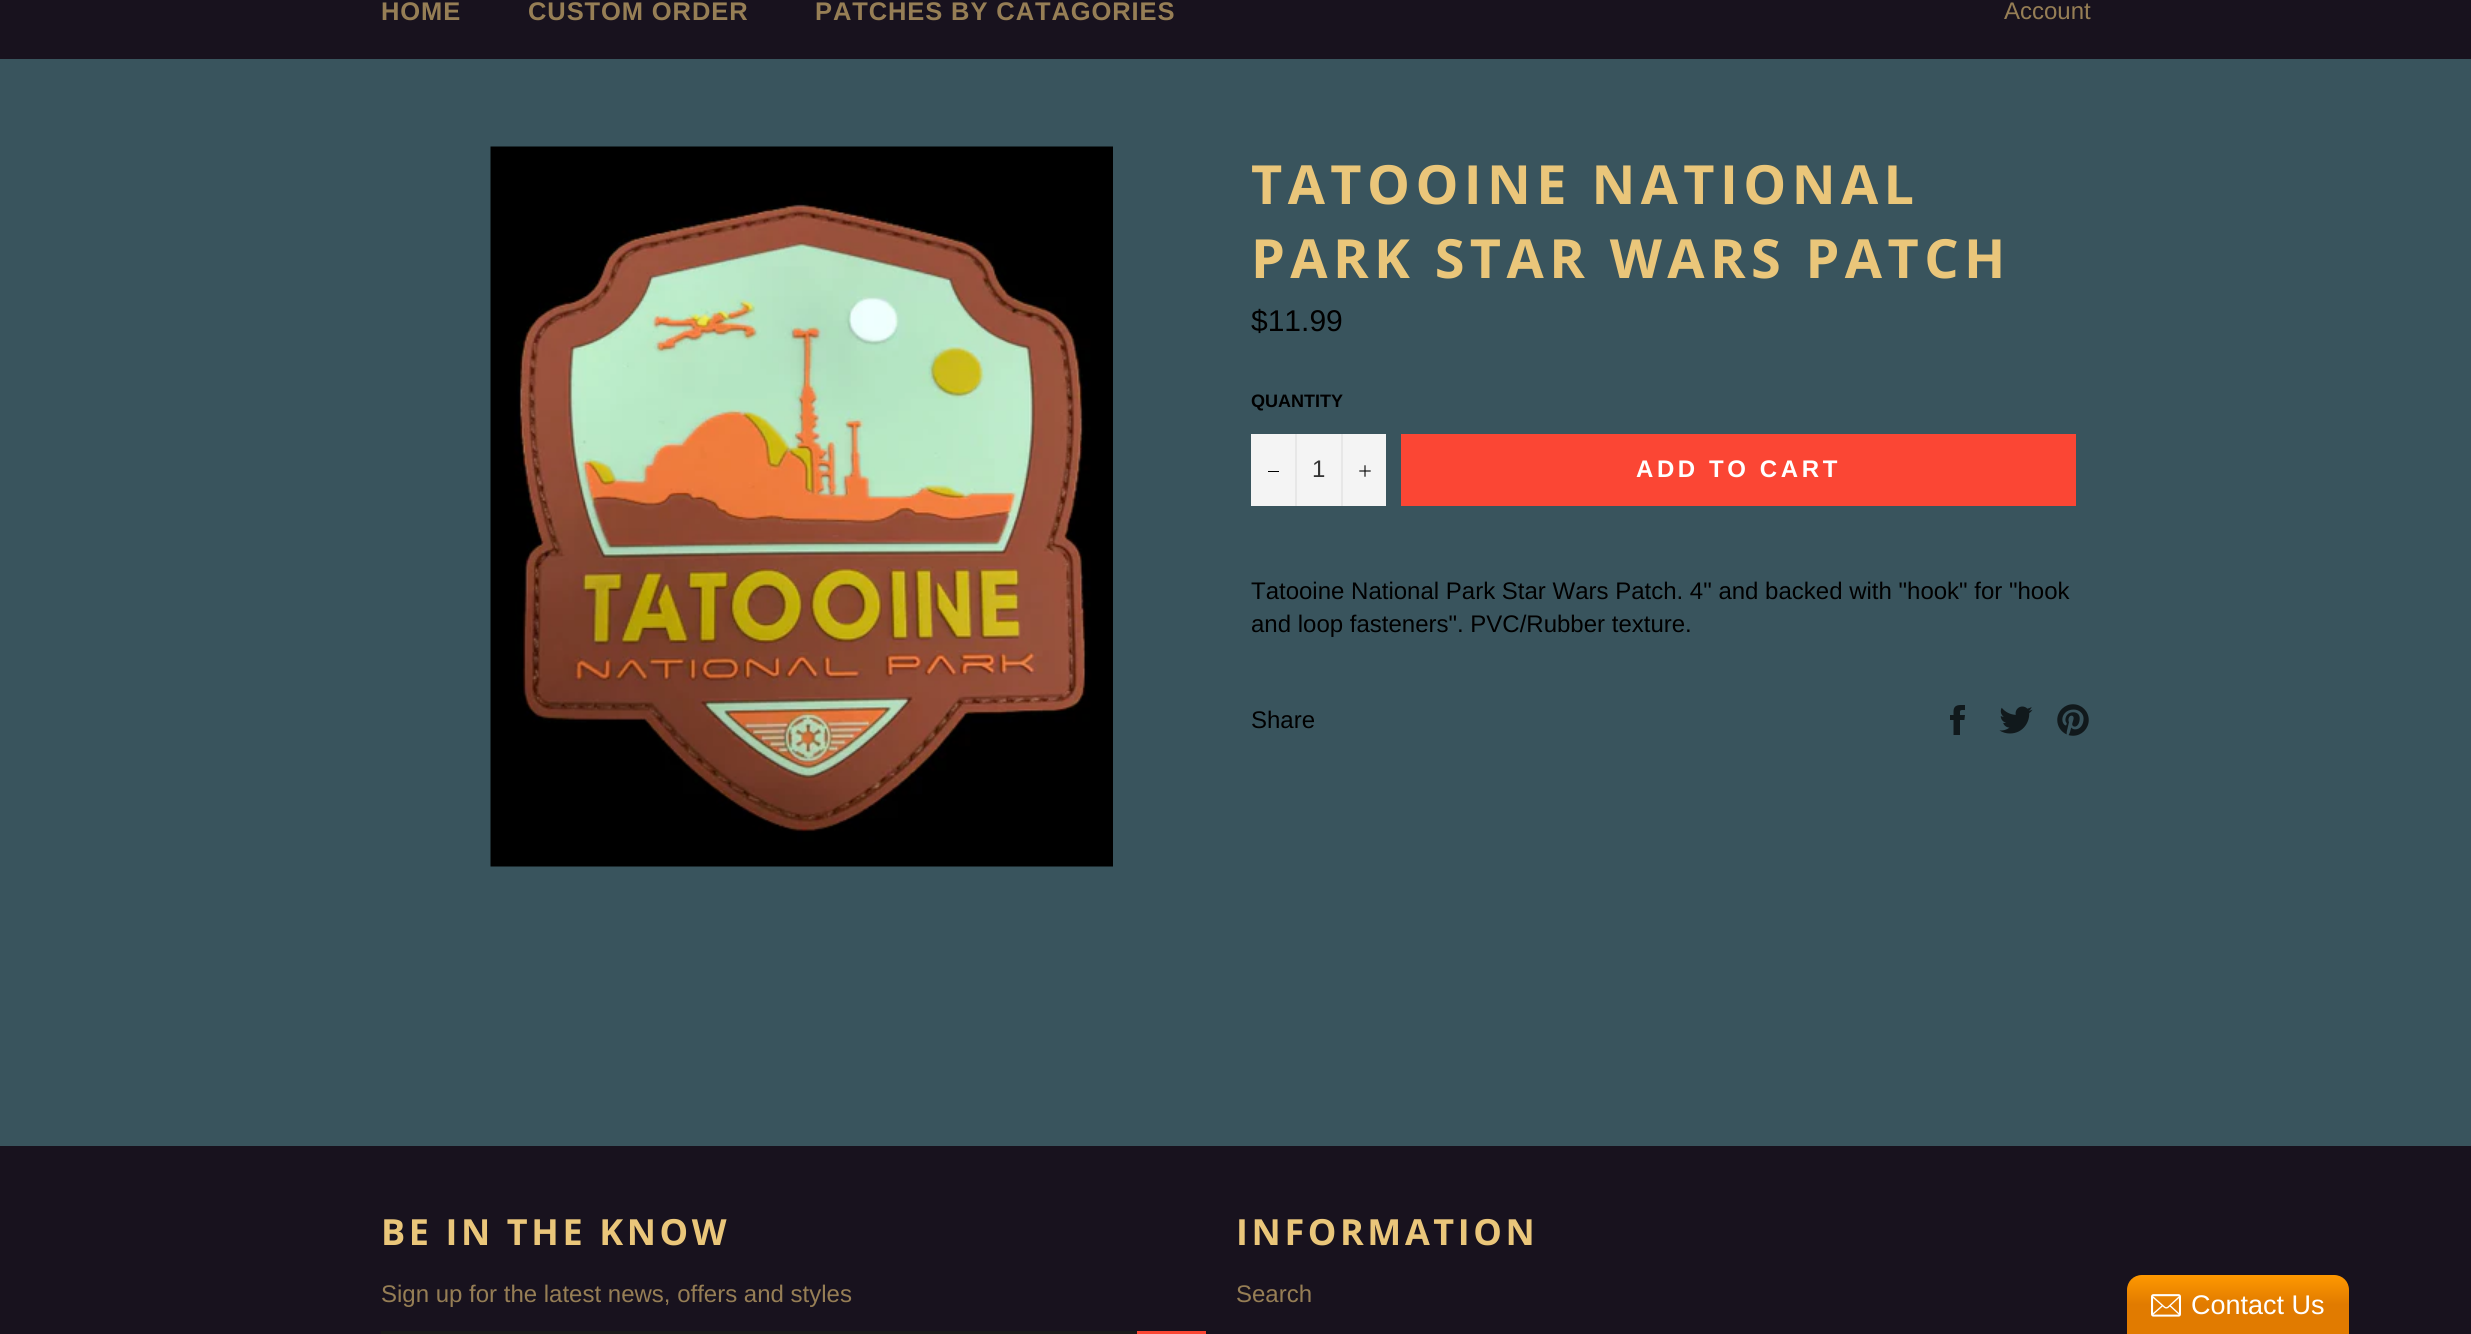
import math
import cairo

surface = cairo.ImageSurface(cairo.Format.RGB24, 2471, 1334)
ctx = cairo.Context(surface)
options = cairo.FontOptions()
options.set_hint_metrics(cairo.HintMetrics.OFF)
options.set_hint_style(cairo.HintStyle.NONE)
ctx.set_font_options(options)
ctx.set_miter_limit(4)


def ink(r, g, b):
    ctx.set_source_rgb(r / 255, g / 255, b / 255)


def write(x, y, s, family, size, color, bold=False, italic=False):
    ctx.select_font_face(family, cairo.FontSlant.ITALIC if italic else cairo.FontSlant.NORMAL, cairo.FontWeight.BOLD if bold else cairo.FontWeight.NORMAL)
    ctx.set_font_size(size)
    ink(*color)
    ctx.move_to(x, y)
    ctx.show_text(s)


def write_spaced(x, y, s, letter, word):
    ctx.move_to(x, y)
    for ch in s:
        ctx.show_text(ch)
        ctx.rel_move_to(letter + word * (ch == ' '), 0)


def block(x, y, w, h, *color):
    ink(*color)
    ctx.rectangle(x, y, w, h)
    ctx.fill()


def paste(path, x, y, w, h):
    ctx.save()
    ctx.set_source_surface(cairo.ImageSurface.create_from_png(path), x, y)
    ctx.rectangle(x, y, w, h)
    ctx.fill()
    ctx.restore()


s1 = dict(family="Liberation Sans", size=24, color=(150, 126, 85))
s2 = dict(family="Liberation Sans", size=30, color=(0, 0, 0))
s3 = dict(family="Liberation Sans", size=18, color=(0, 0, 0), bold=True)
s4 = dict(family="Liberation Sans", size=24, color=(51, 51, 51))
s5 = dict(family="Liberation Sans", size=24, color=(0, 0, 0))
s6 = dict(family="Liberation Sans", size=27, color=(255, 255, 255))

ink(57, 84, 93)
ctx.paint()
block(0, 0, 2471, 59, 24, 18, 30)
ctx.select_font_face("Liberation Sans", cairo.FontSlant.NORMAL, cairo.FontWeight.BOLD)
ctx.set_font_size(25.5)
ink(150, 126, 85)
write_spaced(381, 20, "HOME", 0.9, 0)
write_spaced(528, 20, "CUSTOM ORDER", 0.9, 0)
write_spaced(815, 20, "PATCHES BY CATAGORIES", 0.9, 0)
write(2004, 19, "Account", **s1)
paste("pic1.png", 490, 146, 623, 721)
ctx.select_font_face("Open Sans", cairo.FontSlant.NORMAL, cairo.FontWeight.BOLD)
ctx.set_font_size(54)
ink(234, 198, 122)
write_spaced(1251, 204, "TATOOINE NATIONAL", 5.4, 0)
write_spaced(1251, 278, "PARK STAR WARS PATCH", 5.4, 0)
write(1251, 331, "$11.99", **s2)
write(1251, 407, "QUANTITY", **s3)
block(1251, 434, 135, 72, 244, 244, 244)
block(1295, 434, 2, 72, 231, 231, 231)
block(1268, 471, 11, 1, 0, 0, 0)
write(1312, 477, "1", **s4)
block(1341, 434, 2, 72, 231, 231, 231)
paste("pic2.png", 1359, 465, 12, 12)
block(1401, 434, 675, 72, 251, 70, 52)
ctx.select_font_face("Liberation Sans", cairo.FontSlant.NORMAL, cairo.FontWeight.BOLD)
ink(255, 255, 255)
write_spaced(1636, 477, "ADD TO CART", 3.6, 0)
write(1251, 599, "Tatooine National Park Star Wars Patch. 4\" and backed with \"hook\" for \"hook", **s5)
write(1251, 632, "and loop fasteners\". PVC/Rubber texture.", **s5)
write(1251, 728, "Share", **s5)
paste("pic3.png", 1950, 705, 15, 30)
paste("pic4.png", 1999, 706, 34, 28)
paste("pic5.png", 2057, 704, 32, 32)
block(0, 1146, 2471, 188, 24, 18, 30)
ctx.select_font_face("Open Sans", cairo.FontSlant.NORMAL, cairo.FontWeight.BOLD)
ctx.set_font_size(36)
ink(234, 198, 122)
write_spaced(381, 1245, "BE IN THE KNOW", 3.6, 0)
write(381, 1302, "Sign up for the latest news, offers and styles", **s1)
block(381, 1331, 756, 3, 26, 26, 26)
block(1137, 1331, 69, 3, 251, 70, 52)
ctx.select_font_face("Open Sans", cairo.FontSlant.NORMAL, cairo.FontWeight.BOLD)
ctx.set_font_size(36)
ink(234, 198, 122)
write_spaced(1236, 1245, "INFORMATION", 3.6, 0)
write(1236, 1302, "Search", **s1)
gradient = cairo.LinearGradient(2238, 1275, 2238, 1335)
gradient.add_color_stop_rgba(0, 1, 0.6, 0, 1)
gradient.add_color_stop_rgba(0.5, 0.882, 0.482, 0, 1)
ctx.set_source(gradient)
ctx.new_path()
ctx.move_to(2142, 1275)
ctx.line_to(2334, 1275)
ctx.curve_to(2342.5, 1275, 2349, 1281.5, 2349, 1290)
ctx.line_to(2349, 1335)
ctx.line_to(2127, 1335)
ctx.line_to(2127, 1290)
ctx.curve_to(2127, 1281.5, 2133.5, 1275, 2142, 1275)
ctx.close_path()
ctx.fill()
paste("pic6.png", 2151, 1294, 30, 23)
write(2191, 1314, "Contact Us", **s6)
surface.write_to_png("screenshot.png")
